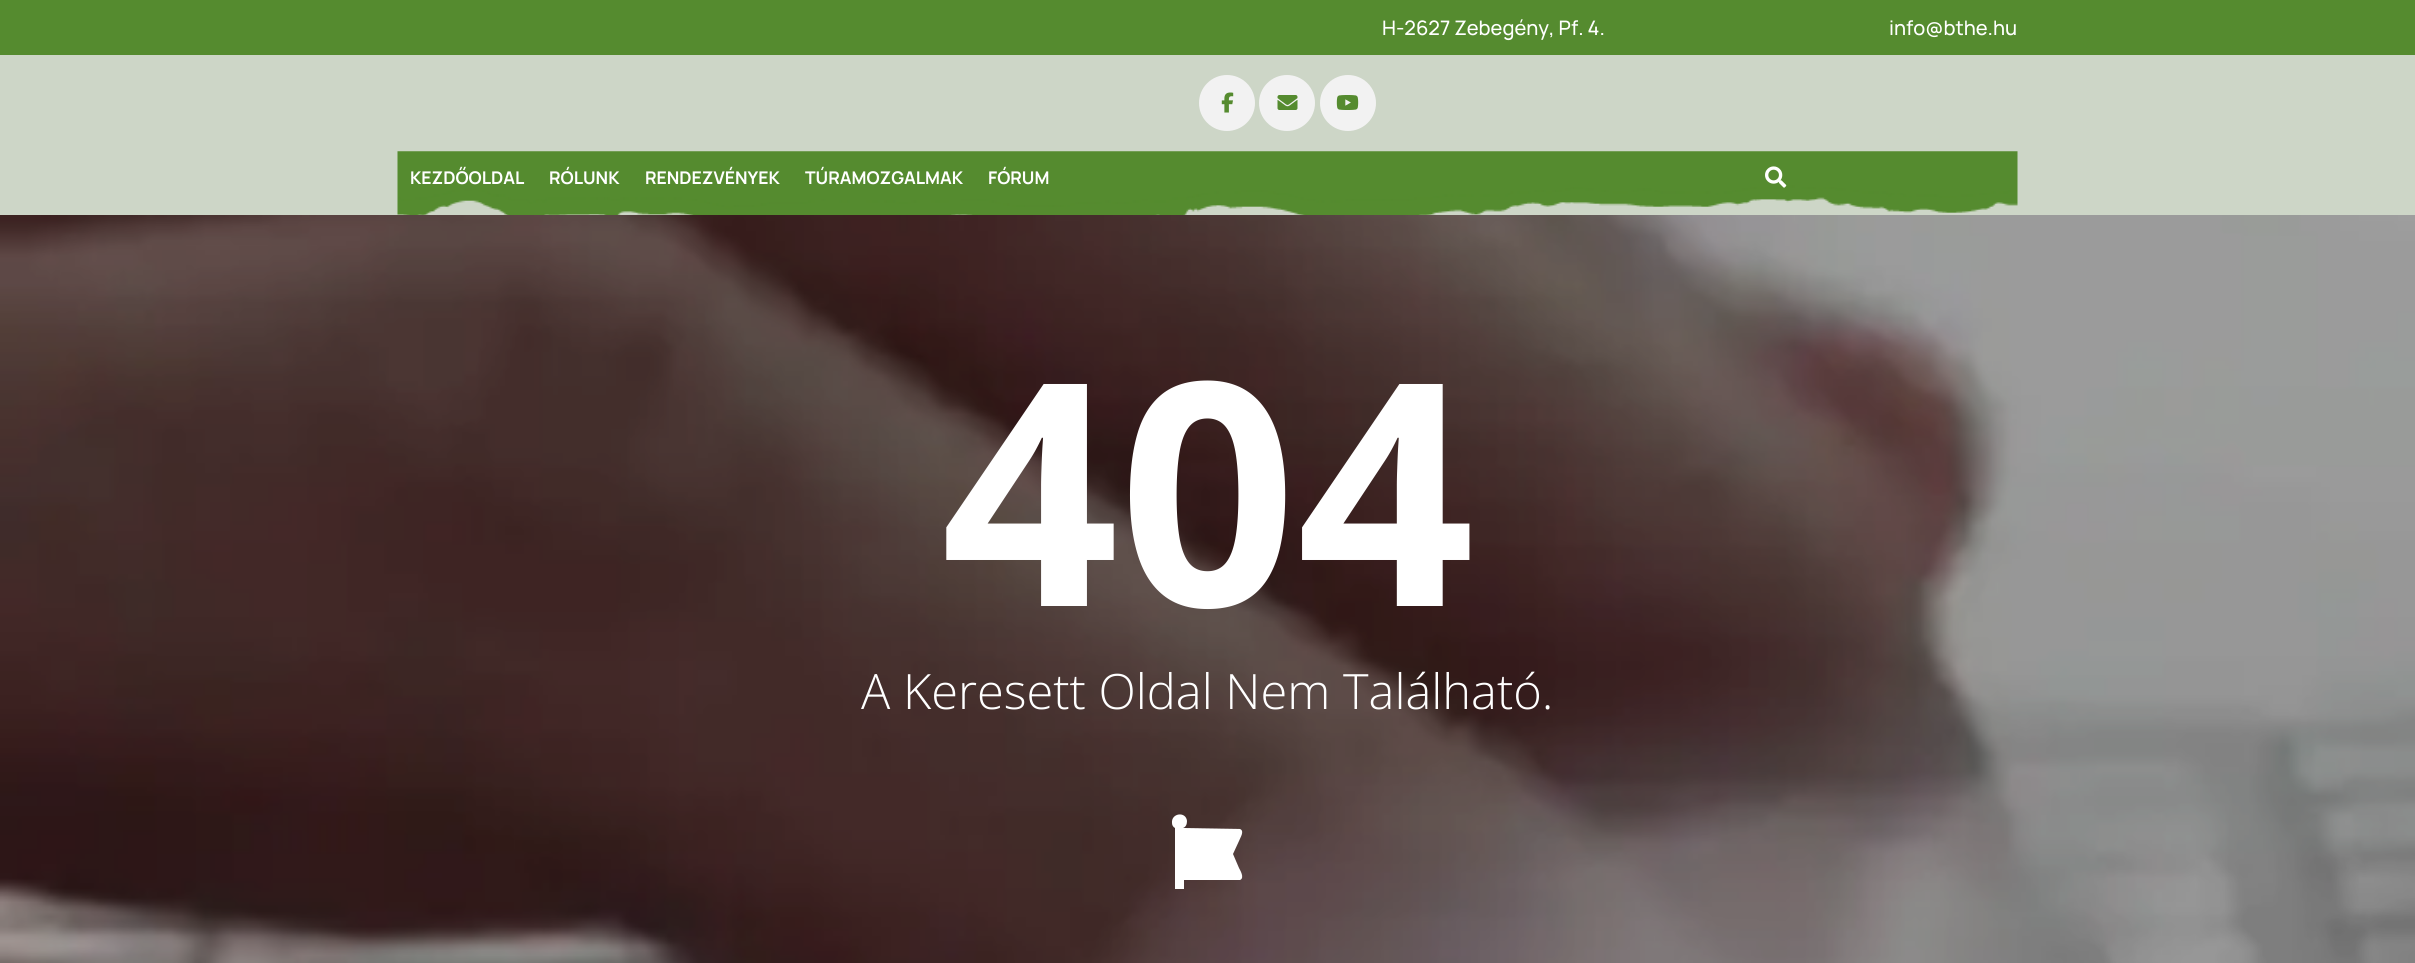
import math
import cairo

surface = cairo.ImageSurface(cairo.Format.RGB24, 2415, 963)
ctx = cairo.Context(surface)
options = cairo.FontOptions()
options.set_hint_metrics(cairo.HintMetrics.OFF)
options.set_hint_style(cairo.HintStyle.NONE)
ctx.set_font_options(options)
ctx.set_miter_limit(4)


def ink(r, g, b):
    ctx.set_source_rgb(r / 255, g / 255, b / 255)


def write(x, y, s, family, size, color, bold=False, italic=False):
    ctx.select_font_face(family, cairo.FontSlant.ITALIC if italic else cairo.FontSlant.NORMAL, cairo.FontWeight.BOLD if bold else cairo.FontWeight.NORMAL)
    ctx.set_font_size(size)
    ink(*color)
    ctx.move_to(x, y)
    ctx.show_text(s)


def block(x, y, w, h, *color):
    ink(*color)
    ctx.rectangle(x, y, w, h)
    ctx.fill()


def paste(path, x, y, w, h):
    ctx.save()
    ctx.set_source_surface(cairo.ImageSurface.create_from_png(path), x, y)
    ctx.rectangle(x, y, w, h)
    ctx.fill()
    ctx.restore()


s1 = dict(family="Manrope Medium", size=20, color=(255, 255, 255))
s2 = dict(family="Manrope", size=17.5, color=(255, 255, 255), bold=True)
s3 = dict(family="Open Sans", size=311, color=(255, 255, 255), bold=True)
s4 = dict(family="Open Sans Light", size=48.75, color=(255, 255, 255))

ink(205, 214, 199)
ctx.paint()
block(0, 0, 2415, 55, 85, 139, 47)
write(1382, 35, "H-2627 Zebegény, Pf. 4.", **s1)
write(1889, 35, "info@bthe.hu", **s1)
ink(242, 242, 242)
ctx.new_path()
ctx.arc(1227, 103, 28, 0, 2 * math.pi)
ctx.fill()
paste("pic1.png", 1221, 92, 13, 21)
ctx.arc(1287, 103, 28, 0, 2 * math.pi)
ctx.fill()
paste("pic2.png", 1277, 95, 21, 15)
ctx.arc(1348, 103, 28, 0, 2 * math.pi)
ctx.fill()
paste("pic3.png", 1336, 95, 23, 15)
paste("pic4.png", 397, 151, 1621, 64)
write(410, 184, "KEZDŐOLDAL", **s2)
write(549, 184, "RÓLUNK", **s2)
write(645, 184, "RENDEZVÉNYEK", **s2)
write(805, 184, "TÚRAMOZGALMAK", **s2)
write(988, 184, "FÓRUM", **s2)
paste("pic5.png", 1765, 166, 22, 22)
paste("pic6.png", 0, 215, 2415, 748)
write(941, 606, "404", **s3)
write(861, 709, "A Keresett Oldal Nem Található.", **s4)
ctx.new_path()
ctx.move_to(1183, 828)
ctx.curve_to(1186, 827, 1187, 824, 1187, 821)
ctx.curve_to(1186, 811, 1171, 813, 1172, 823)
ctx.curve_to(1172, 825, 1173, 827, 1175, 828)
ctx.line_to(1175, 889)
ctx.line_to(1184, 889)
ctx.line_to(1184, 880)
ctx.line_to(1240, 880)
ctx.curve_to(1245, 878, 1240, 870, 1239, 868)
ctx.line_to(1233, 854)
ctx.line_to(1239, 841)
ctx.curve_to(1240, 838, 1245, 831, 1240, 829)
ctx.close_path()
ctx.fill()
surface.write_to_png("screenshot.png")
